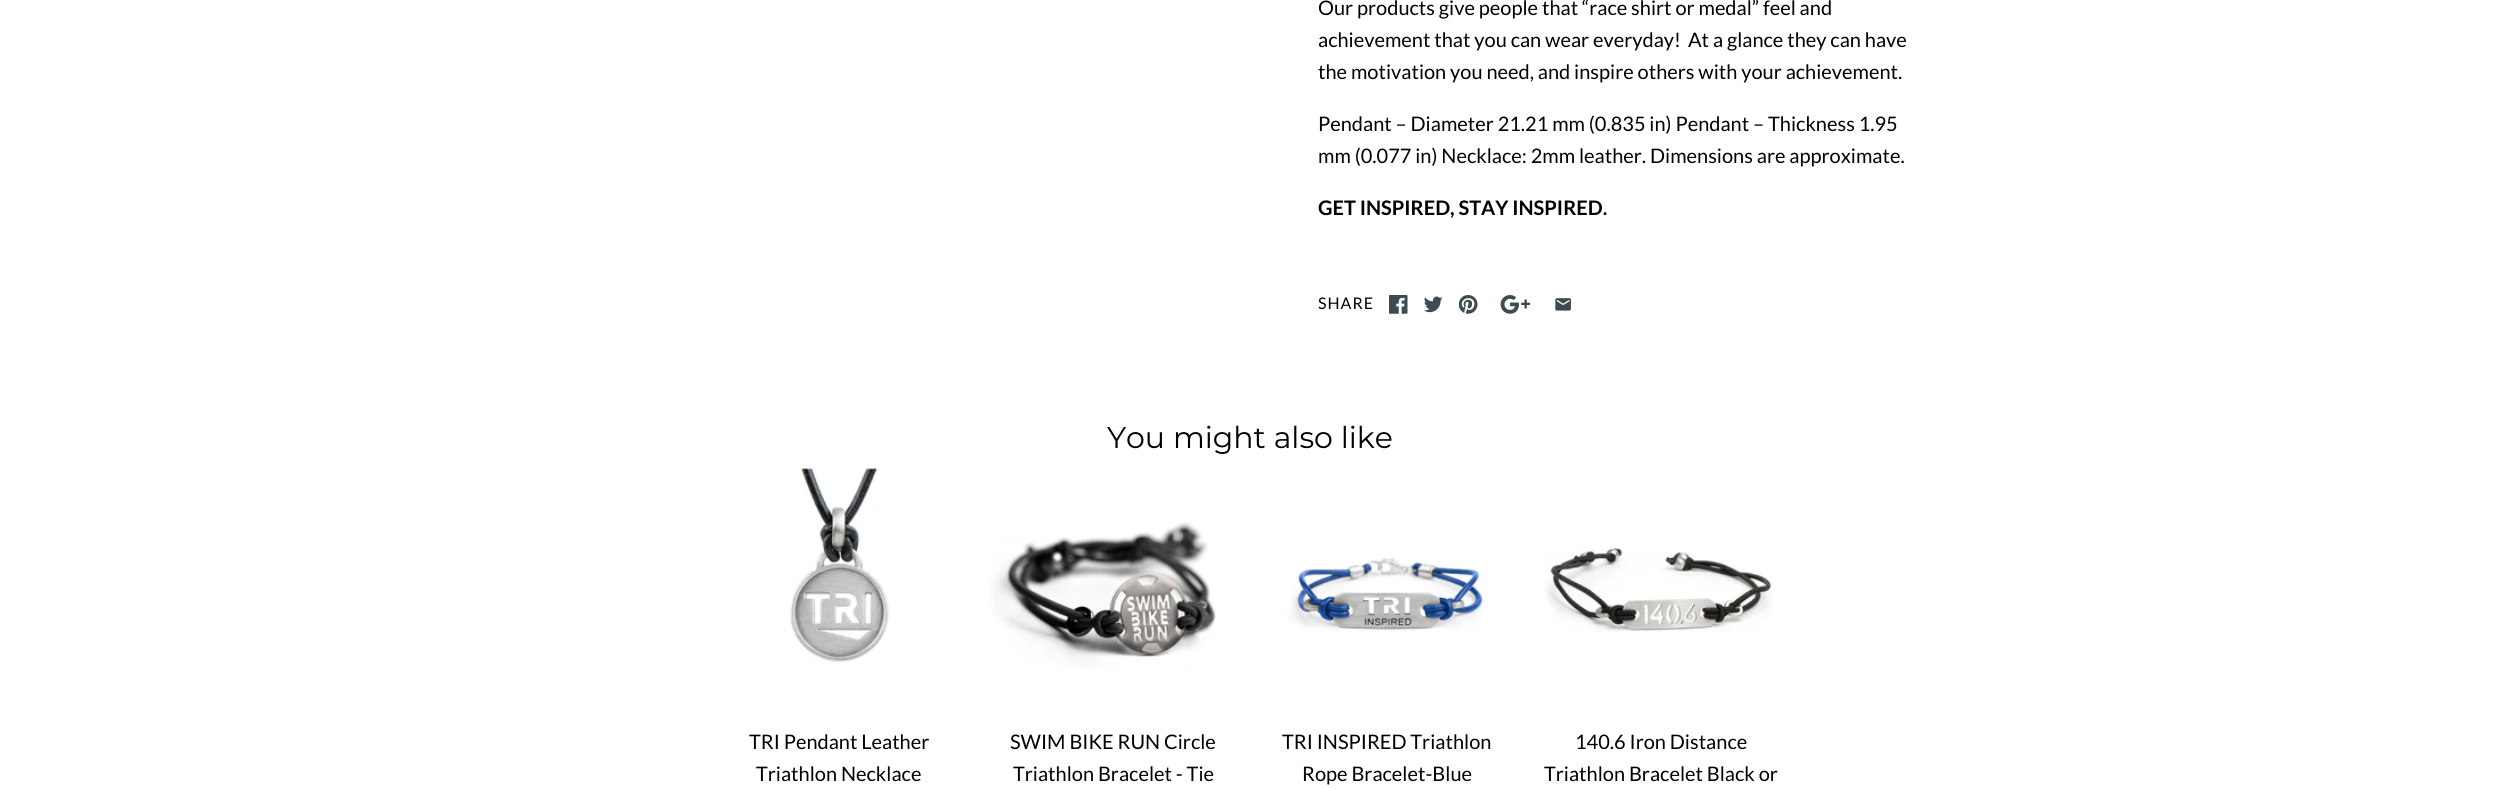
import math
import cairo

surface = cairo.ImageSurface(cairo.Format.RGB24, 2499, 789)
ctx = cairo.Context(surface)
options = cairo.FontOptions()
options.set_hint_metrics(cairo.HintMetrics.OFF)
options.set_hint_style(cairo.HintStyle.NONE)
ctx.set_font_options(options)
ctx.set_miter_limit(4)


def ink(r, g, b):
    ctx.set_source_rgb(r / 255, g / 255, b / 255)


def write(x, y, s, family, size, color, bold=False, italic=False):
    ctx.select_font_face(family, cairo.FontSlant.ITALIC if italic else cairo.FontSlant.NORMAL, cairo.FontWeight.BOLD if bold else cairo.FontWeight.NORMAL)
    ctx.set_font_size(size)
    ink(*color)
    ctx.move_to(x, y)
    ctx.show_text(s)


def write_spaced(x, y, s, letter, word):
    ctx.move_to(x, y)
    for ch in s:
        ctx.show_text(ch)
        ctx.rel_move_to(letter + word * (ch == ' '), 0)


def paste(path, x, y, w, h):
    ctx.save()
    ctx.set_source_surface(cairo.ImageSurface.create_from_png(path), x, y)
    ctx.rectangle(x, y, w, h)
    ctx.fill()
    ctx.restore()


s1 = dict(family="Lato", size=20, color=(0, 0, 0))
s2 = dict(family="Lato", size=20, color=(0, 0, 0), bold=True)
s3 = dict(family="Montserrat", size=30, color=(0, 0, 0))

ink(255, 255, 255)
ctx.paint()
write(1318, 15, "Our products give people that “race shirt or medal” feel and", **s1)
write(1318, 47, "achievement that you can wear everyday!", **s1)
write(1688, 47, "At a glance they can have", **s1)
write(1318, 79, "the motivation you need, and inspire others with your achievement.", **s1)
write(1318, 131, "Pendant – Diameter 21.21 mm (0.835 in) Pendant – Thickness 1.95", **s1)
write(1318, 163, "mm (0.077 in) Necklace: 2mm leather. Dimensions are approximate.", **s1)
write(1318, 215, "GET INSPIRED, STAY INSPIRED.", **s2)
ctx.select_font_face("Lato")
ctx.set_font_size(16)
write_spaced(1318, 309, "SHARE", 1, 0)
paste("pic1.png", 1389, 295, 19, 19)
paste("pic2.png", 1424, 296, 19, 17)
paste("pic3.png", 1459, 295, 19, 19)
paste("pic4.png", 1500, 295, 31, 19)
paste("pic5.png", 1555, 298, 16, 13)
write(1107, 448, "You might also like", **s3)
paste("pic6.png", 789, 468, 100, 196)
write(749, 749, "TRI Pendant Leather", **s1)
write(756, 781, "Triathlon Necklace", **s1)
paste("pic7.png", 990, 522, 226, 147)
write(1010, 749, "SWIM BIKE RUN Circle", **s1)
write(1013, 781, "Triathlon Bracelet - Tie", **s1)
paste("pic8.png", 1289, 556, 197, 76)
write(1282, 749, "TRI INSPIRED Triathlon", **s1)
write(1302, 781, "Rope Bracelet-Blue", **s1)
paste("pic9.png", 1545, 547, 228, 85)
write(1575, 749, "140.6 Iron Distance", **s1)
write(1544, 781, "Triathlon Bracelet Black or", **s1)
surface.write_to_png("screenshot.png")
